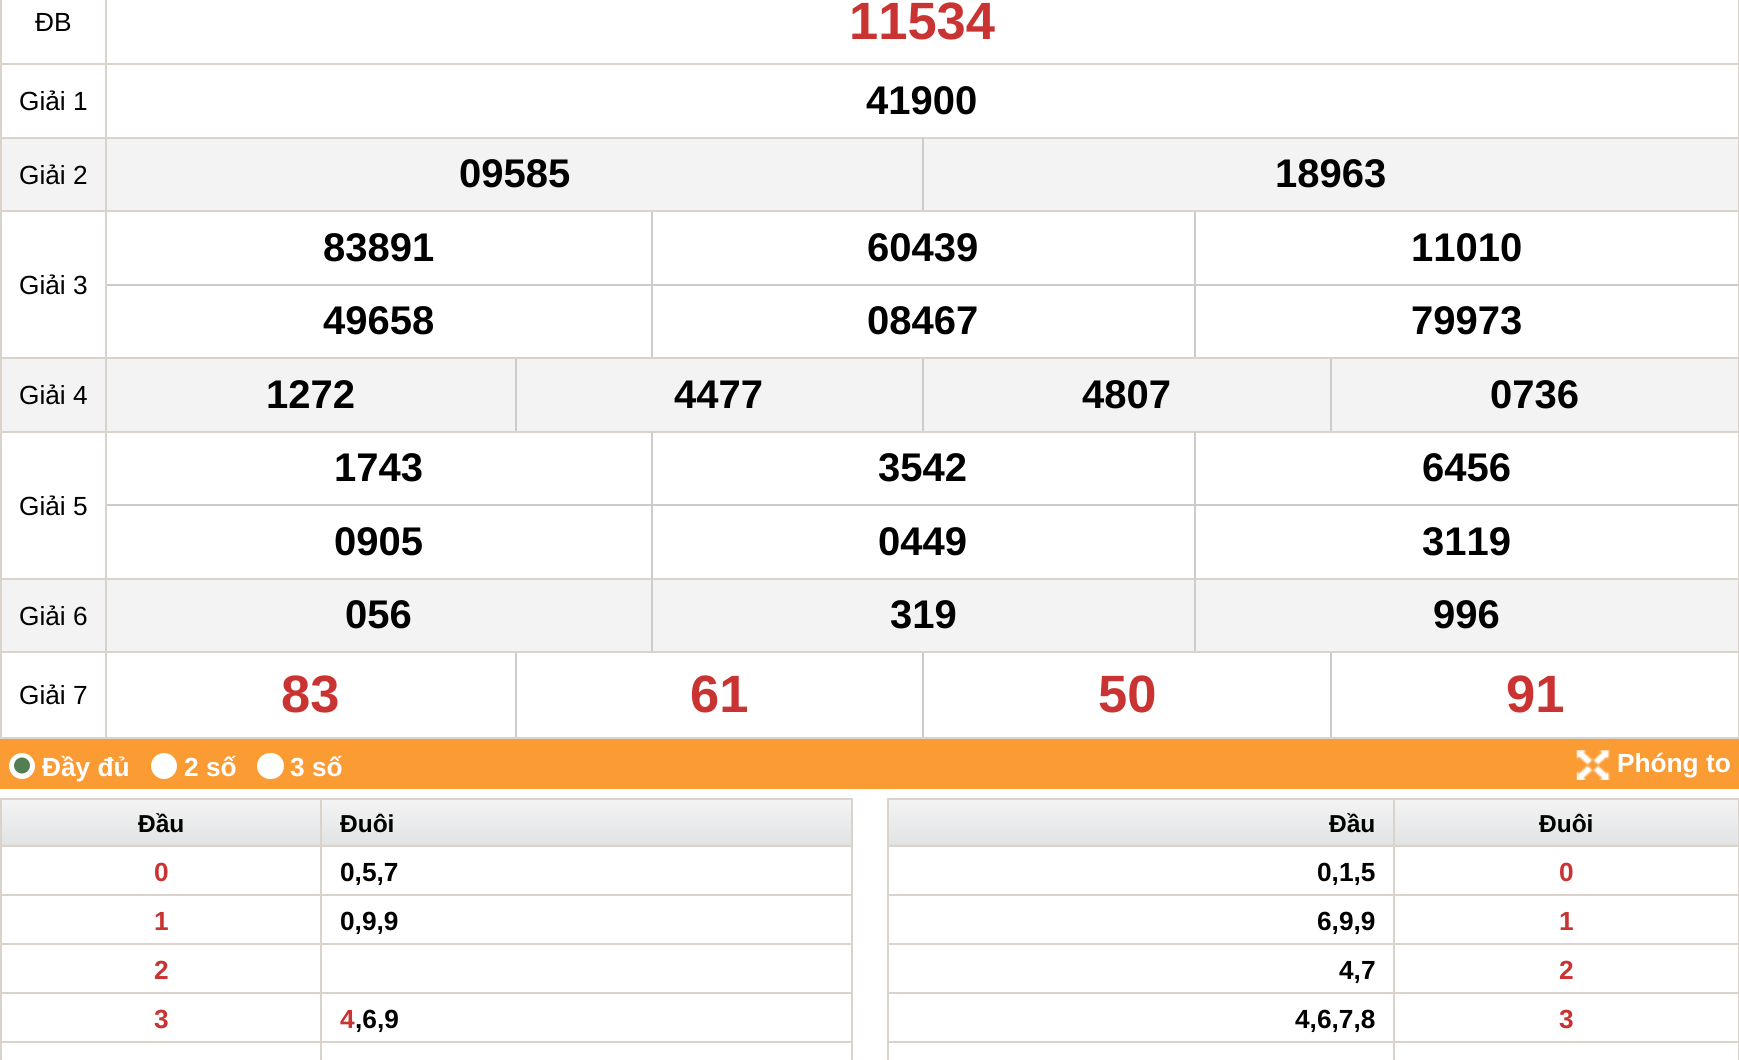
import math
import cairo

surface = cairo.ImageSurface(cairo.Format.RGB24, 1739, 1060)
ctx = cairo.Context(surface)
options = cairo.FontOptions()
options.set_hint_metrics(cairo.HintMetrics.OFF)
options.set_hint_style(cairo.HintStyle.NONE)
ctx.set_font_options(options)
ctx.set_miter_limit(4)


def ink(r, g, b):
    ctx.set_source_rgb(r / 255, g / 255, b / 255)


def write(x, y, s, family, size, color, bold=False, italic=False):
    ctx.select_font_face(family, cairo.FontSlant.ITALIC if italic else cairo.FontSlant.NORMAL, cairo.FontWeight.BOLD if bold else cairo.FontWeight.NORMAL)
    ctx.set_font_size(size)
    ink(*color)
    ctx.move_to(x, y)
    ctx.show_text(s)


def block(x, y, w, h, *color):
    ink(*color)
    ctx.rectangle(x, y, w, h)
    ctx.fill()


def round_path(x, y, w, h, r):
    ctx.new_sub_path()
    for i, (u, v) in enumerate([(x + w - r, y + h - r), (x + r, y + h - r), (x + r, y + r), (x + w - r, y + r)]):
        ctx.arc(u, v, r, i * math.pi / 2, (i + 1) * math.pi / 2)
    ctx.close_path()


def paste(path, x, y, w, h):
    ctx.save()
    ctx.set_source_surface(cairo.ImageSurface.create_from_png(path), x, y)
    ctx.rectangle(x, y, w, h)
    ctx.fill()
    ctx.restore()


s1 = dict(family="Liberation Sans", size=26.25, color=(0, 0, 0))
s2 = dict(family="Liberation Sans", size=52.5, color=(201, 51, 50), bold=True)
s3 = dict(family="Liberation Sans", size=40, color=(0, 0, 0), bold=True)
s4 = dict(family="Liberation Sans", size=26.25, color=(255, 255, 255), bold=True)
s5 = dict(family="Liberation Sans", size=24.5, color=(0, 0, 0), bold=True)
s6 = dict(family="Liberation Sans", size=26.25, color=(201, 51, 50), bold=True)
s7 = dict(family="Liberation Sans", size=26.25, color=(0, 0, 0), bold=True)

ink(255, 255, 255)
ctx.paint()
write(35, 31, "ĐB", **s1)
block(105, 63, 1634, 2, 217, 211, 203)
block(105, 137, 1634, 2, 217, 211, 203)
block(2, 139, 1736, 71, 243, 243, 243)
block(105, 210, 1634, 2, 217, 211, 203)
block(105, 357, 1634, 2, 217, 211, 203)
block(2, 359, 1736, 72, 243, 243, 243)
block(105, 431, 1634, 2, 217, 211, 203)
block(105, 578, 1634, 2, 217, 211, 203)
block(2, 580, 1736, 71, 243, 243, 243)
block(105, 651, 1634, 2, 217, 211, 203)
block(1738, 651, 1, 88, 217, 211, 203)
block(105, 737, 1634, 2, 217, 211, 203)
block(105, 651, 2, 88, 217, 211, 203)
block(0, 651, 107, 2, 217, 211, 203)
block(105, 578, 2, 75, 217, 211, 203)
block(0, 578, 107, 2, 217, 211, 203)
block(105, 431, 2, 148, 217, 211, 203)
block(0, 431, 107, 2, 217, 211, 203)
block(105, 357, 2, 75, 217, 211, 203)
block(0, 357, 107, 2, 217, 211, 203)
block(105, 210, 2, 149, 217, 211, 203)
block(0, 210, 107, 2, 217, 211, 203)
block(105, 137, 2, 75, 217, 211, 203)
block(0, 137, 107, 2, 217, 211, 203)
block(105, 63, 2, 75, 217, 211, 203)
block(0, 63, 107, 2, 217, 211, 203)
block(105, 0, 2, 65, 217, 211, 203)
write(849, 39, "11534", **s2)
block(0, 737, 107, 2, 217, 211, 203)
block(0, 651, 2, 88, 217, 211, 203)
block(0, 578, 2, 75, 217, 211, 203)
block(0, 431, 2, 148, 217, 211, 203)
block(0, 357, 2, 75, 217, 211, 203)
block(0, 210, 2, 149, 217, 211, 203)
block(0, 137, 2, 75, 217, 211, 203)
block(0, 0, 2, 138, 217, 211, 203)
write(19, 110, "Giải 1", **s1)
block(1738, 578, 1, 75, 217, 211, 203)
block(1738, 431, 1, 148, 217, 211, 203)
block(1738, 357, 1, 75, 217, 211, 203)
block(1738, 210, 1, 149, 217, 211, 203)
block(1738, 137, 1, 75, 217, 211, 203)
block(1738, 0, 1, 138, 217, 211, 203)
write(866, 114, "41900", **s3)
write(19, 184, "Giải 2", **s1)
write(459, 187, "09585", **s3)
block(922, 138, 2, 72, 204, 204, 204)
write(1275, 187, "18963", **s3)
write(19, 294, "Giải 3", **s1)
block(107, 284, 1631, 2, 204, 204, 204)
write(323, 261, "83891", **s3)
block(651, 212, 2, 145, 204, 204, 204)
write(867, 261, "60439", **s3)
block(1194, 212, 2, 145, 204, 204, 204)
write(1411, 261, "11010", **s3)
write(323, 334, "49658", **s3)
write(867, 334, "08467", **s3)
write(1411, 334, "79973", **s3)
write(19, 404, "Giải 4", **s1)
write(266, 408, "1272", **s3)
block(515, 359, 2, 72, 204, 204, 204)
write(674, 408, "4477", **s3)
block(922, 359, 2, 72, 204, 204, 204)
write(1082, 408, "4807", **s3)
block(1330, 359, 2, 72, 204, 204, 204)
write(1490, 408, "0736", **s3)
write(19, 515, "Giải 5", **s1)
block(107, 504, 1631, 2, 204, 204, 204)
write(334, 481, "1743", **s3)
block(651, 432, 2, 146, 204, 204, 204)
write(878, 481, "3542", **s3)
block(1194, 432, 2, 146, 204, 204, 204)
write(1422, 481, "6456", **s3)
write(334, 555, "0905", **s3)
write(878, 555, "0449", **s3)
write(1422, 555, "3119", **s3)
write(19, 625, "Giải 6", **s1)
write(345, 628, "056", **s3)
block(651, 579, 2, 72, 204, 204, 204)
write(890, 628, "319", **s3)
block(1194, 579, 2, 72, 204, 204, 204)
write(1433, 628, "996", **s3)
write(19, 704, "Giải 7", **s1)
write(281, 712, "83", **s2)
block(515, 653, 2, 84, 204, 204, 204)
write(690, 712, "61", **s2)
block(922, 653, 2, 84, 204, 204, 204)
write(1098, 712, "50", **s2)
block(1330, 653, 2, 84, 204, 204, 204)
write(1506, 712, "91", **s2)
block(0, 739, 1739, 50, 251, 155, 52)
ink(255, 255, 255)
ctx.new_path()
ctx.arc(22, 766, 13, 0, 2 * math.pi)
ctx.fill()
ink(83, 126, 81)
ctx.arc(22, 765.5, 8, 0, 2 * math.pi)
ctx.fill()
write(42, 776, "Đầy đủ", **s4)
ctx.new_path()
ctx.arc(164, 766, 13, 0, 2 * math.pi)
ctx.fill()
write(184, 776, "2 số", **s4)
round_path(257, 753, 27, 26, 13)
ctx.fill()
write(290, 776, "3 số", **s4)
paste("pic1.png", 1576, 750, 34, 30)
write(1617, 772, "Phóng to", **s4)
block(2, 800, 318, 2, 243, 243, 243)
gradient = cairo.LinearGradient(162, 802, 162, 845)
gradient.add_color_stop_rgba(0, 0.953, 0.953, 0.953, 1)
gradient.add_color_stop_rgba(1, 0.882, 0.89, 0.894, 1)
ctx.set_source(gradient)
ctx.rectangle(2, 802, 318, 43)
ctx.fill()
block(320, 798, 532, 2, 217, 211, 203)
block(320, 845, 532, 2, 217, 211, 203)
block(320, 894, 532, 2, 217, 211, 203)
block(320, 943, 532, 2, 217, 211, 203)
block(320, 992, 532, 2, 217, 211, 203)
block(320, 1041, 532, 2, 217, 211, 203)
block(320, 1041, 2, 19, 217, 211, 203)
block(0, 1041, 322, 2, 217, 211, 203)
block(320, 992, 2, 51, 217, 211, 203)
block(0, 992, 322, 2, 217, 211, 203)
block(320, 943, 2, 51, 217, 211, 203)
block(0, 943, 322, 2, 217, 211, 203)
block(320, 894, 2, 51, 217, 211, 203)
block(0, 894, 322, 2, 217, 211, 203)
block(320, 845, 2, 51, 217, 211, 203)
block(0, 845, 322, 2, 217, 211, 203)
block(320, 798, 2, 49, 217, 211, 203)
block(0, 798, 322, 2, 217, 211, 203)
block(0, 1041, 2, 19, 217, 211, 203)
block(0, 992, 2, 51, 217, 211, 203)
block(0, 943, 2, 51, 217, 211, 203)
block(0, 894, 2, 51, 217, 211, 203)
block(0, 845, 2, 51, 217, 211, 203)
block(0, 798, 2, 49, 217, 211, 203)
write(138, 832, "Đầu", **s5)
block(322, 800, 529, 2, 243, 243, 243)
gradient = cairo.LinearGradient(587, 802, 587, 845)
gradient.add_color_stop_rgba(0, 0.953, 0.953, 0.953, 1)
gradient.add_color_stop_rgba(1, 0.882, 0.89, 0.894, 1)
ctx.set_source(gradient)
ctx.rectangle(322, 802, 529, 43)
ctx.fill()
block(851, 1041, 2, 19, 217, 211, 203)
block(851, 992, 2, 51, 217, 211, 203)
block(851, 943, 2, 51, 217, 211, 203)
block(851, 894, 2, 51, 217, 211, 203)
block(851, 845, 2, 51, 217, 211, 203)
block(851, 798, 2, 49, 217, 211, 203)
write(340, 832, "Đuôi", **s5)
write(154, 881, "0", **s6)
write(340, 881, "0,5,7", **s7)
write(154, 930, "1", **s6)
write(340, 930, "0,9,9", **s7)
write(154, 979, "2", **s6)
write(154, 1028, "3", **s6)
write(340, 1028, "4", **s6)
write(355, 1028, ",6,9", **s7)
block(889, 800, 504, 2, 243, 243, 243)
gradient = cairo.LinearGradient(1141, 802, 1141, 845)
gradient.add_color_stop_rgba(0, 0.953, 0.953, 0.953, 1)
gradient.add_color_stop_rgba(1, 0.882, 0.89, 0.894, 1)
ctx.set_source(gradient)
ctx.rectangle(889, 802, 504, 43)
ctx.fill()
block(1393, 798, 346, 2, 217, 211, 203)
block(1393, 845, 346, 2, 217, 211, 203)
block(1393, 894, 346, 2, 217, 211, 203)
block(1393, 943, 346, 2, 217, 211, 203)
block(1393, 992, 346, 2, 217, 211, 203)
block(1393, 1041, 346, 2, 217, 211, 203)
block(1393, 1041, 2, 19, 217, 211, 203)
block(887, 1041, 508, 2, 217, 211, 203)
block(1393, 992, 2, 51, 217, 211, 203)
block(887, 992, 508, 2, 217, 211, 203)
block(1393, 943, 2, 51, 217, 211, 203)
block(887, 943, 508, 2, 217, 211, 203)
block(1393, 894, 2, 51, 217, 211, 203)
block(887, 894, 508, 2, 217, 211, 203)
block(1393, 845, 2, 51, 217, 211, 203)
block(887, 845, 508, 2, 217, 211, 203)
block(1393, 798, 2, 49, 217, 211, 203)
block(887, 798, 508, 2, 217, 211, 203)
block(887, 1041, 2, 19, 217, 211, 203)
block(887, 992, 2, 51, 217, 211, 203)
block(887, 943, 2, 51, 217, 211, 203)
block(887, 894, 2, 51, 217, 211, 203)
block(887, 845, 2, 51, 217, 211, 203)
block(887, 798, 2, 49, 217, 211, 203)
write(1329, 832, "Đầu", **s5)
block(1395, 800, 343, 2, 243, 243, 243)
gradient = cairo.LinearGradient(1567, 802, 1567, 845)
gradient.add_color_stop_rgba(0, 0.953, 0.953, 0.953, 1)
gradient.add_color_stop_rgba(1, 0.882, 0.89, 0.894, 1)
ctx.set_source(gradient)
ctx.rectangle(1395, 802, 343, 43)
ctx.fill()
block(1738, 1041, 1, 19, 217, 211, 203)
block(1738, 992, 1, 51, 217, 211, 203)
block(1738, 943, 1, 51, 217, 211, 203)
block(1738, 894, 1, 51, 217, 211, 203)
block(1738, 845, 1, 51, 217, 211, 203)
block(1738, 798, 1, 49, 217, 211, 203)
write(1539, 832, "Đuôi", **s5)
write(1317, 881, "0,1,5", **s7)
write(1559, 881, "0", **s6)
write(1317, 930, "6,9,9", **s7)
write(1559, 930, "1", **s6)
write(1339, 979, "4,7", **s7)
write(1559, 979, "2", **s6)
write(1295, 1028, "4,6,7,8", **s7)
write(1559, 1028, "3", **s6)
surface.write_to_png("screenshot.png")
